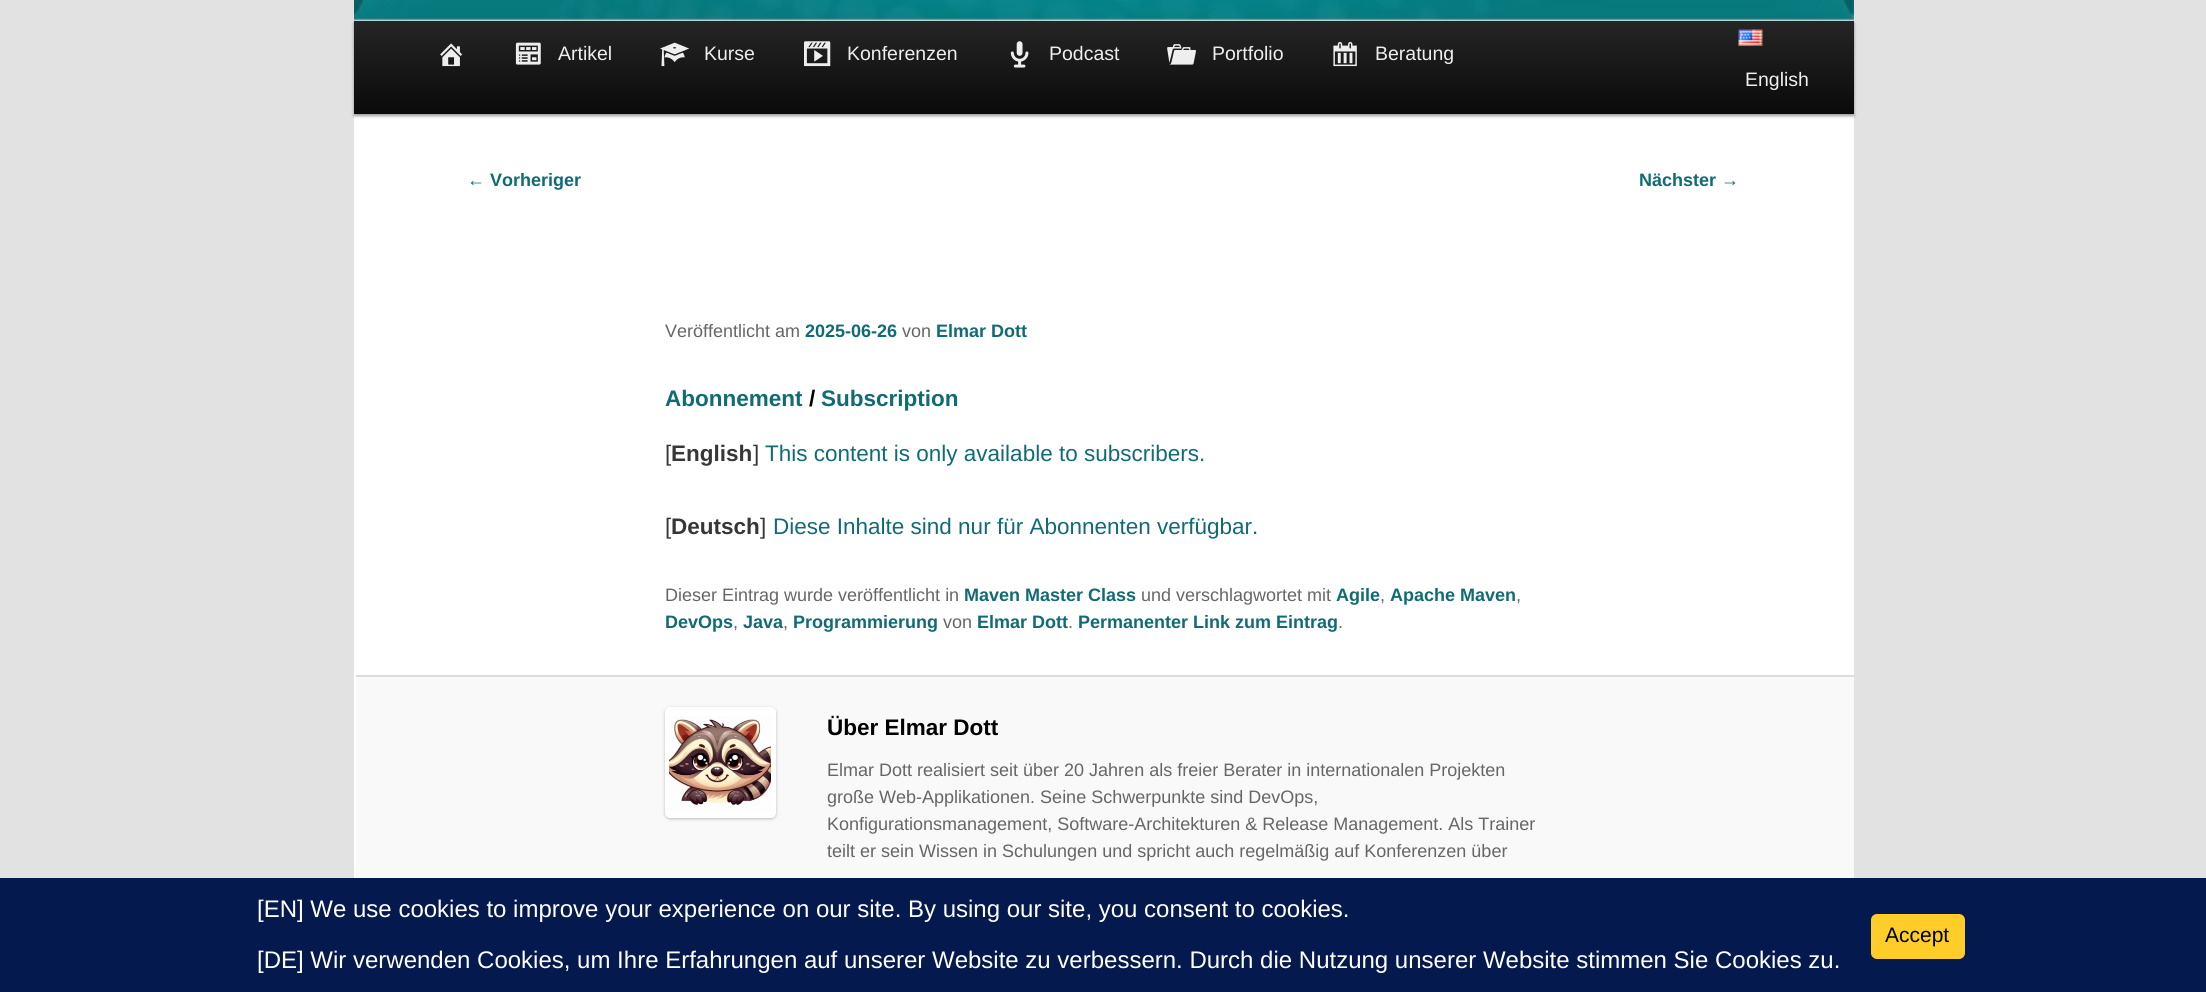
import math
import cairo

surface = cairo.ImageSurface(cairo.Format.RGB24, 2206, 992)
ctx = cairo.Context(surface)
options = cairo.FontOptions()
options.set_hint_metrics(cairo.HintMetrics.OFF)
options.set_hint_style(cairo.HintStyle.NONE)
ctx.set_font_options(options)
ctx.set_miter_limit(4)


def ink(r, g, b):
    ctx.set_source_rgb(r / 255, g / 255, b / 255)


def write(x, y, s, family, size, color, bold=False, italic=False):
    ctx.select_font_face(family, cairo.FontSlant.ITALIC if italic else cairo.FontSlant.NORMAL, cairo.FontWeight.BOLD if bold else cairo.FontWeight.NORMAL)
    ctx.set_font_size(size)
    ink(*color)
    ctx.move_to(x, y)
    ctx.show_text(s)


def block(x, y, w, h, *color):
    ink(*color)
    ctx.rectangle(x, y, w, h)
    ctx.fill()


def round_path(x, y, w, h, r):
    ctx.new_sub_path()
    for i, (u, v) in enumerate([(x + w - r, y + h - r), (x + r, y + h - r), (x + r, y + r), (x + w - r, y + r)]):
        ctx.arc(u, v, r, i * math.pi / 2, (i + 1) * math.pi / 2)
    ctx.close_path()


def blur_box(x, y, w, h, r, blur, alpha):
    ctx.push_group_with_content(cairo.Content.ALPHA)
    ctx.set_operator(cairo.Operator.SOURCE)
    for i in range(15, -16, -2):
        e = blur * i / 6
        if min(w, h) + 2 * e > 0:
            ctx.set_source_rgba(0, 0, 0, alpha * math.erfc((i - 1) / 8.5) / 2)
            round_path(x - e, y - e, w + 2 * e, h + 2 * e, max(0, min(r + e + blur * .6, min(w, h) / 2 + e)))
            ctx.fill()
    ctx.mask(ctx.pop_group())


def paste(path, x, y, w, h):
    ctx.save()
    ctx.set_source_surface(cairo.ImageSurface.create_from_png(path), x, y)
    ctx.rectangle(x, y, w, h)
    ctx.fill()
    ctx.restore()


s1 = dict(family="Liberation Sans", size=19.5, color=(238, 238, 238))
s2 = dict(family="Liberation Sans", size=18, color=(16, 107, 117))
s3 = dict(family="Liberation Sans", size=18, color=(16, 107, 117), bold=True)
s4 = dict(family="Liberation Sans", size=18, color=(102, 102, 102))
s5 = dict(family="Liberation Sans", size=22.5, color=(16, 107, 117), bold=True)
s6 = dict(family="Liberation Sans", size=22.5, color=(0, 0, 0), bold=True)
s7 = dict(family="Liberation Sans", size=22.5, color=(55, 55, 55))
s8 = dict(family="Liberation Sans", size=22.5, color=(55, 55, 55), bold=True)
s9 = dict(family="Liberation Sans", size=22.5, color=(16, 107, 117))
s10 = dict(family="Liberation Sans", size=24, color=(255, 255, 255))
s11 = dict(family="Liberation Sans", size=21, color=(0, 0, 0))

ink(226, 226, 226)
ctx.paint()
block(354, 20, 1500, 858, 255, 255, 255)
ink(0, 0, 0)
blur_box(354, 23, 1500, 93, 0, 1.5, 0.4)
paste("pic1.png", 354, 0, 1500, 21)
gradient = cairo.LinearGradient(1104, 21, 1104, 114)
gradient.add_color_stop_rgba(0, 0.145, 0.145, 0.145, 1)
gradient.add_color_stop_rgba(1, 0.039, 0.039, 0.039, 1)
ctx.set_source(gradient)
ctx.rectangle(354, 21, 1500, 93)
ctx.fill()
paste("pic2.png", 440, 43, 23, 24)
paste("pic3.png", 515, 42, 26, 23)
write(558, 60, "Artikel", **s1)
paste("pic4.png", 660, 42, 30, 25)
write(704, 60, "Kurse", **s1)
paste("pic5.png", 804, 41, 27, 26)
write(847, 60, "Konferenzen", **s1)
paste("pic6.png", 1010, 41, 19, 27)
write(1049, 60, "Podcast", **s1)
paste("pic7.png", 1167, 44, 29, 21)
write(1212, 60, "Portfolio", **s1)
paste("pic8.png", 1333, 41, 24, 26)
write(1375, 60, "Beratung", **s1)
paste("pic9.png", 1738, 29, 25, 17)
write(1745, 86, "English", **s1)
write(467, 186, "←", **s2)
write(490, 186, "Vorheriger", **s3)
write(1639, 186, "Nächster", **s3)
write(1721, 186, "→", **s2)
write(665, 337, "Veröffentlicht am", **s4)
write(805, 337, "2025-06-26", **s3)
write(902, 337, "von", **s4)
write(936, 337, "Elmar Dott", **s3)
write(665, 406, "Abonnement", **s5)
write(809, 406, "/", **s6)
write(821, 406, "Subscription", **s5)
write(665, 461, "[", **s7)
write(671, 461, "English", **s8)
write(753, 461, "]", **s7)
write(765, 461, "This content is only available to subscribers.", **s9)
write(665, 534, "[", **s7)
write(671, 534, "Deutsch", **s8)
write(760, 534, "]", **s7)
write(773, 534, "Diese Inhalte sind nur für Abonnenten verfügbar.", **s9)
write(665, 601, "Dieser Eintrag wurde veröffentlicht in", **s4)
write(964, 601, "Maven Master Class", **s3)
write(1141, 601, "und verschlagwortet mit", **s4)
write(1336, 601, "Agile", **s3)
write(1380, 601, ",", **s4)
write(1390, 601, "Apache Maven", **s3)
write(1516, 601, ",", **s4)
write(665, 628, "DevOps", **s3)
write(733, 628, ",", **s4)
write(743, 628, "Java", **s3)
write(783, 628, ",", **s4)
write(793, 628, "Programmierung", **s3)
write(943, 628, "von", **s4)
write(977, 628, "Elmar Dott", **s3)
write(1068, 628, ".", **s4)
write(1078, 628, "Permanenter Link zum Eintrag", **s3)
write(1338, 628, ".", **s4)
block(356, 677, 1498, 201, 249, 249, 249)
block(356, 675, 1498, 2, 221, 221, 221)
ink(187, 187, 187)
blur_box(665, 708, 111, 111, 5, 1.5, 1)
ink(255, 255, 255)
round_path(665, 707, 111, 111, 5)
ctx.fill()
paste("pic10.png", 669, 716, 102, 95)
write(827, 735, "Über Elmar Dott", **s6)
write(827, 776, "Elmar Dott realisiert seit über 20 Jahren als freier Berater in internationalen Projekten", **s4)
write(827, 803, "große Web-Applikationen. Seine Schwerpunkte sind DevOps,", **s4)
write(827, 830, "Konfigurationsmanagement, Software-Architekturen & Release Management. Als Trainer", **s4)
write(827, 857, "teilt er sein Wissen in Schulungen und spricht auch regelmäßig auf Konferenzen über", **s4)
block(0, 878, 2206, 114, 4, 25, 78)
write(257, 917, "[EN] We use cookies to improve your experience on our site. By using our site, you consent to cookies.", **s10)
write(257, 968, "[DE] Wir verwenden Cookies, um Ihre Erfahrungen auf unserer Website zu verbessern. Durch die Nutzung unserer Website stimmen Sie Cookies zu.", **s10)
ink(255, 205, 42)
round_path(1871, 914, 94, 45, 6)
ctx.fill()
write(1885, 942, "Accept", **s11)
surface.write_to_png("screenshot.png")
